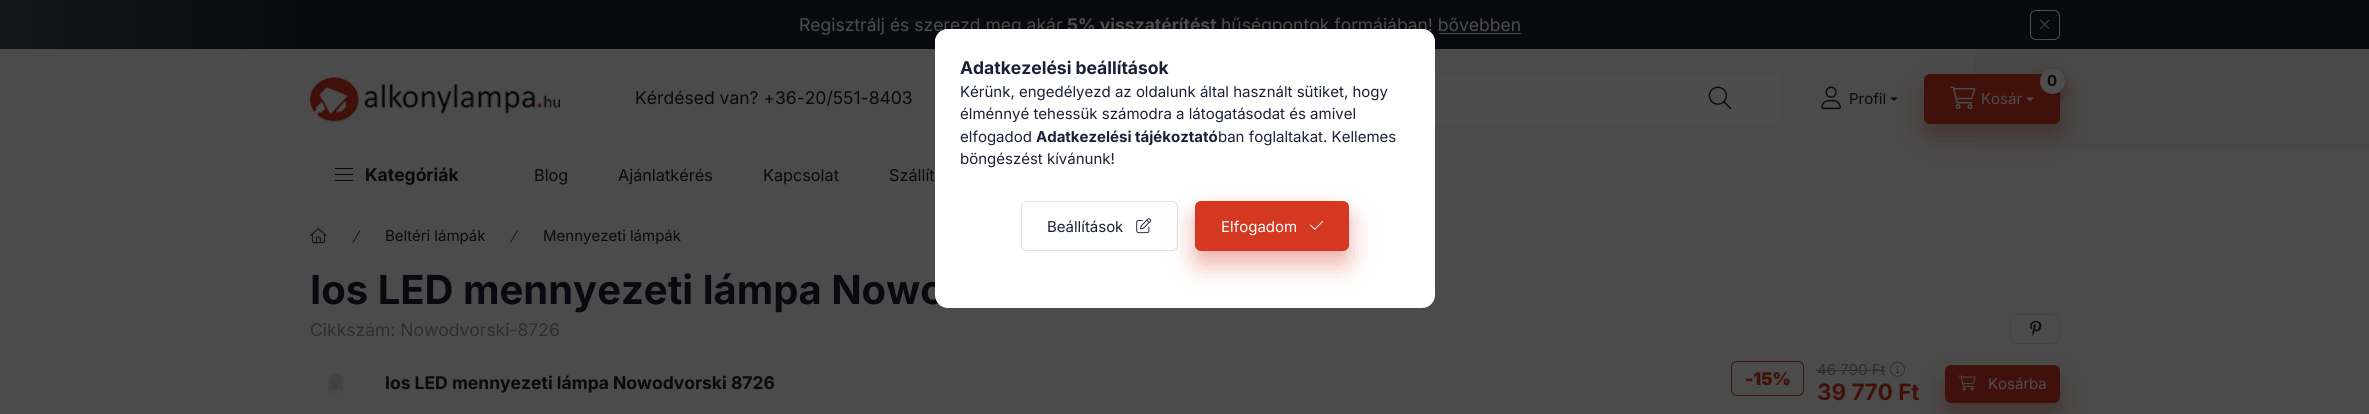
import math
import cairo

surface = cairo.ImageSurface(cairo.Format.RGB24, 2369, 414)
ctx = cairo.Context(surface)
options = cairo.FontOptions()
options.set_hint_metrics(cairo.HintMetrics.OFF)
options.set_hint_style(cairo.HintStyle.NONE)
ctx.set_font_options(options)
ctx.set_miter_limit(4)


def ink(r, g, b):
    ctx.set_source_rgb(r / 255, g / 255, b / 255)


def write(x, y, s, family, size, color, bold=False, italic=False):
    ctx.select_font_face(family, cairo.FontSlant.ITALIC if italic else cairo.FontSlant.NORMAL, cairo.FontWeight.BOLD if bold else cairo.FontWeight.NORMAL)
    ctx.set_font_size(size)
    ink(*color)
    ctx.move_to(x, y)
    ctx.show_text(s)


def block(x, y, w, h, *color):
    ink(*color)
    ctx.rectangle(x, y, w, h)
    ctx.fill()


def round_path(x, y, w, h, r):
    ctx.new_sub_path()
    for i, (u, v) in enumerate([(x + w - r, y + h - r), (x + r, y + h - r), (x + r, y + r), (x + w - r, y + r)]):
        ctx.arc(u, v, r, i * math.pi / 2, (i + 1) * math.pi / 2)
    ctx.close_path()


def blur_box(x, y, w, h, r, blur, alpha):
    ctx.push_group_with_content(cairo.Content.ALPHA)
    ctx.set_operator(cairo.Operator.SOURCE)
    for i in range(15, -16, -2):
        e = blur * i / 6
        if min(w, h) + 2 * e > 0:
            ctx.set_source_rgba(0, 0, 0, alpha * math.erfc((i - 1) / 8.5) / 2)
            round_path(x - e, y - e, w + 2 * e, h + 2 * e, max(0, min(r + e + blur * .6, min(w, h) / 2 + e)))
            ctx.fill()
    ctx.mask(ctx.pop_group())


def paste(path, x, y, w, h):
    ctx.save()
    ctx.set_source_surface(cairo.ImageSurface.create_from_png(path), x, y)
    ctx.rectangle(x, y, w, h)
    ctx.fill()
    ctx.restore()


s1 = dict(family="Inter", size=17.5, color=(77, 77, 77))
s2 = dict(family="Inter", size=17.5, color=(77, 77, 77), bold=True)
s3 = dict(family="Inter", size=17.5, color=(8, 10, 16))
s4 = dict(family="Inter", size=15, color=(8, 10, 16))
s5 = dict(family="Inter", size=15, color=(8, 10, 16), bold=True)
s6 = dict(family="Inter", size=15, color=(77, 77, 77))
s7 = dict(family="Inter", size=17.5, color=(8, 10, 16), bold=True)
s8 = dict(family="Inter", size=16.25, color=(8, 10, 16))
s9 = dict(family="Inter", size=40, color=(8, 10, 16), bold=True)
s10 = dict(family="Inter", size=17.5, color=(46, 46, 46))
s11 = dict(family="Inter Black", size=17.5, color=(64, 17, 10))
s12 = dict(family="Inter", size=15, color=(46, 46, 46))
s13 = dict(family="Inter", size=22.5, color=(64, 17, 10), bold=True)
s14 = dict(family="Inter", size=17.5, color=(27, 32, 54), bold=True)
s15 = dict(family="Inter", size=15, color=(27, 32, 54))
s16 = dict(family="Inter", size=15, color=(27, 32, 54), bold=True)
s17 = dict(family="Inter", size=15, color=(255, 255, 255))

ink(75, 75, 75)
ctx.paint()
gradient = cairo.LinearGradient(0, 208, 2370, 207)
gradient.add_color_stop_rgba(0, 0.294, 0.294, 0.294, 1)
gradient.add_color_stop_rgba(1, 0.282, 0.282, 0.282, 1)
ctx.set_source(gradient)
ctx.rectangle(1975, 49, 394, 100)
ctx.fill()
ink(64, 17, 10)
blur_box(1924, 86, 136, 50, 6, 12.5, 0.4)
block(310, 0, 2059, 49, 8, 10, 16)
gradient = cairo.LinearGradient(-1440, 24, 310, 24)
gradient.add_color_stop_rgba(0, 0.031, 0.039, 0.063, 1)
gradient.add_color_stop_rgba(0.5, 0.165, 0.169, 0.184, 1)
gradient.add_color_stop_rgba(1, 0.031, 0.039, 0.063, 1)
ctx.set_source(gradient)
ctx.rectangle(0, 0, 310, 49)
ctx.fill()
write(799, 31, "Regisztrálj és szerezd meg akár", **s1)
write(1067, 31, "5% visszatérítést", **s2)
write(1221, 31, "hűségpontok formájában! bővebben", **s1)
block(1439, 33, 82, 1, 77, 77, 77)
round_path(2030.5, 10.5, 29, 29, 5.5)
ctx.set_line_width(1)
ctx.stroke()
paste("pic1.png", 2040, 19, 10, 10)
paste("pic2.png", 310, 77, 250, 45)
write(635, 104, "Kérdésed van? +36-20/551-8403", **s3)
ink(77, 77, 77)
round_path(938, 74, 843, 50, 6)
ctx.fill()
paste("pic3.png", 1708, 86, 24, 23)
paste("pic4.png", 1821, 86, 20, 24)
write(1849, 104, "Profil", **s4)
ctx.new_path()
ctx.move_to(1890, 97.5)
ctx.line_to(1897.5, 97.5)
ctx.line_to(1894, 101)
ctx.close_path()
ctx.fill()
ink(64, 17, 10)
round_path(1924, 74, 136, 50, 6)
ctx.fill()
ink(64, 17, 10)
blur_box(2040, 75, 25, 25, 12.5, 6, 0.4)
ink(77, 77, 77)
ctx.arc(2052.5, 81.5, 12.5, 0, 2 * math.pi)
ctx.fill()
write(2047, 86, "0", **s5)
paste("pic5.png", 1950, 86, 26, 23)
write(1981, 104, "Kosár", **s6)
ctx.new_path()
ctx.move_to(2026, 97.5)
ctx.line_to(2034, 97.5)
ctx.line_to(2030, 101)
ctx.close_path()
ctx.fill()
block(335, 168, 18, 1, 8, 10, 16)
block(335, 174, 18, 1, 8, 10, 16)
block(335, 180, 18, 1, 8, 10, 16)
write(365, 181, "Kategóriák", **s7)
write(534, 181, "Blog", **s8)
write(618, 181, "Ajánlatkérés", **s8)
write(763, 181, "Kapcsolat", **s8)
write(889, 181, "Szállít", **s8)
paste("pic6.png", 310, 228, 17, 16)
paste("pic7.png", 352, 230, 9, 13)
write(385, 241, "Beltéri lámpák", **s4)
paste("pic8.png", 510, 230, 8, 13)
write(543, 241, "Mennyezeti lámpák", **s4)
write(310, 304, "Ios LED mennyezeti lámpa Nowo", **s9)
write(310, 336, "Cikkszám: Nowodvorski-8726", **s10)
round_path(2010.5, 314.5, 49, 29, 5.5)
ink(68, 68, 68)
ctx.stroke()
paste("pic9.png", 2030, 320, 12, 16)
paste("pic10.png", 326, 374, 19, 20)
write(385, 389, "Ios LED mennyezeti lámpa Nowodvorski 8726", **s7)
round_path(1731.5, 361.5, 72, 34, 5.5)
ink(64, 17, 10)
ctx.stroke()
write(1745, 385, "-15%", **s11)
write(1817, 375, "46 790 Ft", **s12)
block(1816, 370, 69, 1, 46, 46, 46)
paste("pic11.png", 1890, 361, 15, 16)
write(1817, 400, "39 770 Ft", **s13)
ink(64, 17, 10)
blur_box(1945, 378, 115, 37, 6, 12.5, 0.4)
ink(64, 17, 10)
round_path(1945, 365, 115, 38, 6)
ctx.fill()
paste("pic12.png", 1958, 375, 18, 16)
write(1988, 389, "Kosárba", **s6)
ink(255, 255, 255)
round_path(935, 29, 500, 279, 13)
ctx.fill()
ctx.new_path()
ctx.move_to(948, 29)
ctx.line_to(1422, 29)
ctx.curve_to(1429, 29, 1435, 35, 1435, 42)
ctx.line_to(1435, 283)
ctx.line_to(935, 283)
ctx.line_to(935, 42)
ctx.curve_to(935, 35, 941, 29, 948, 29)
ctx.close_path()
ctx.fill()
write(960, 74, "Adatkezelési beállítások", **s14)
write(960, 97, "Kérünk, engedélyezd az oldalunk által használt sütiket, hogy", **s15)
write(960, 119, "élménnyé tehessük számodra a látogatásodat és amivel", **s15)
write(960, 142, "elfogadod", **s15)
write(1036, 142, "Adatkezelési tájékoztató", **s16)
write(1218, 142, "ban foglaltakat. Kellemes", **s15)
write(960, 164, "böngészést kívánunk!", **s15)
round_path(1021.5, 201.5, 156, 49, 5.5)
ink(225, 225, 225)
ctx.stroke()
write(1047, 232, "Beállítások", **s15)
paste("pic13.png", 1136, 218, 16, 16)
ink(213, 56, 32)
blur_box(1195, 214, 154, 50, 6, 12.5, 0.4)
ink(213, 56, 32)
round_path(1195.5, 201.5, 153, 49, 5.5)
ctx.fill_preserve()
ctx.stroke()
write(1221, 232, "Elfogadom", **s17)
paste("pic14.png", 1310, 221, 14, 9)
surface.write_to_png("screenshot.png")
